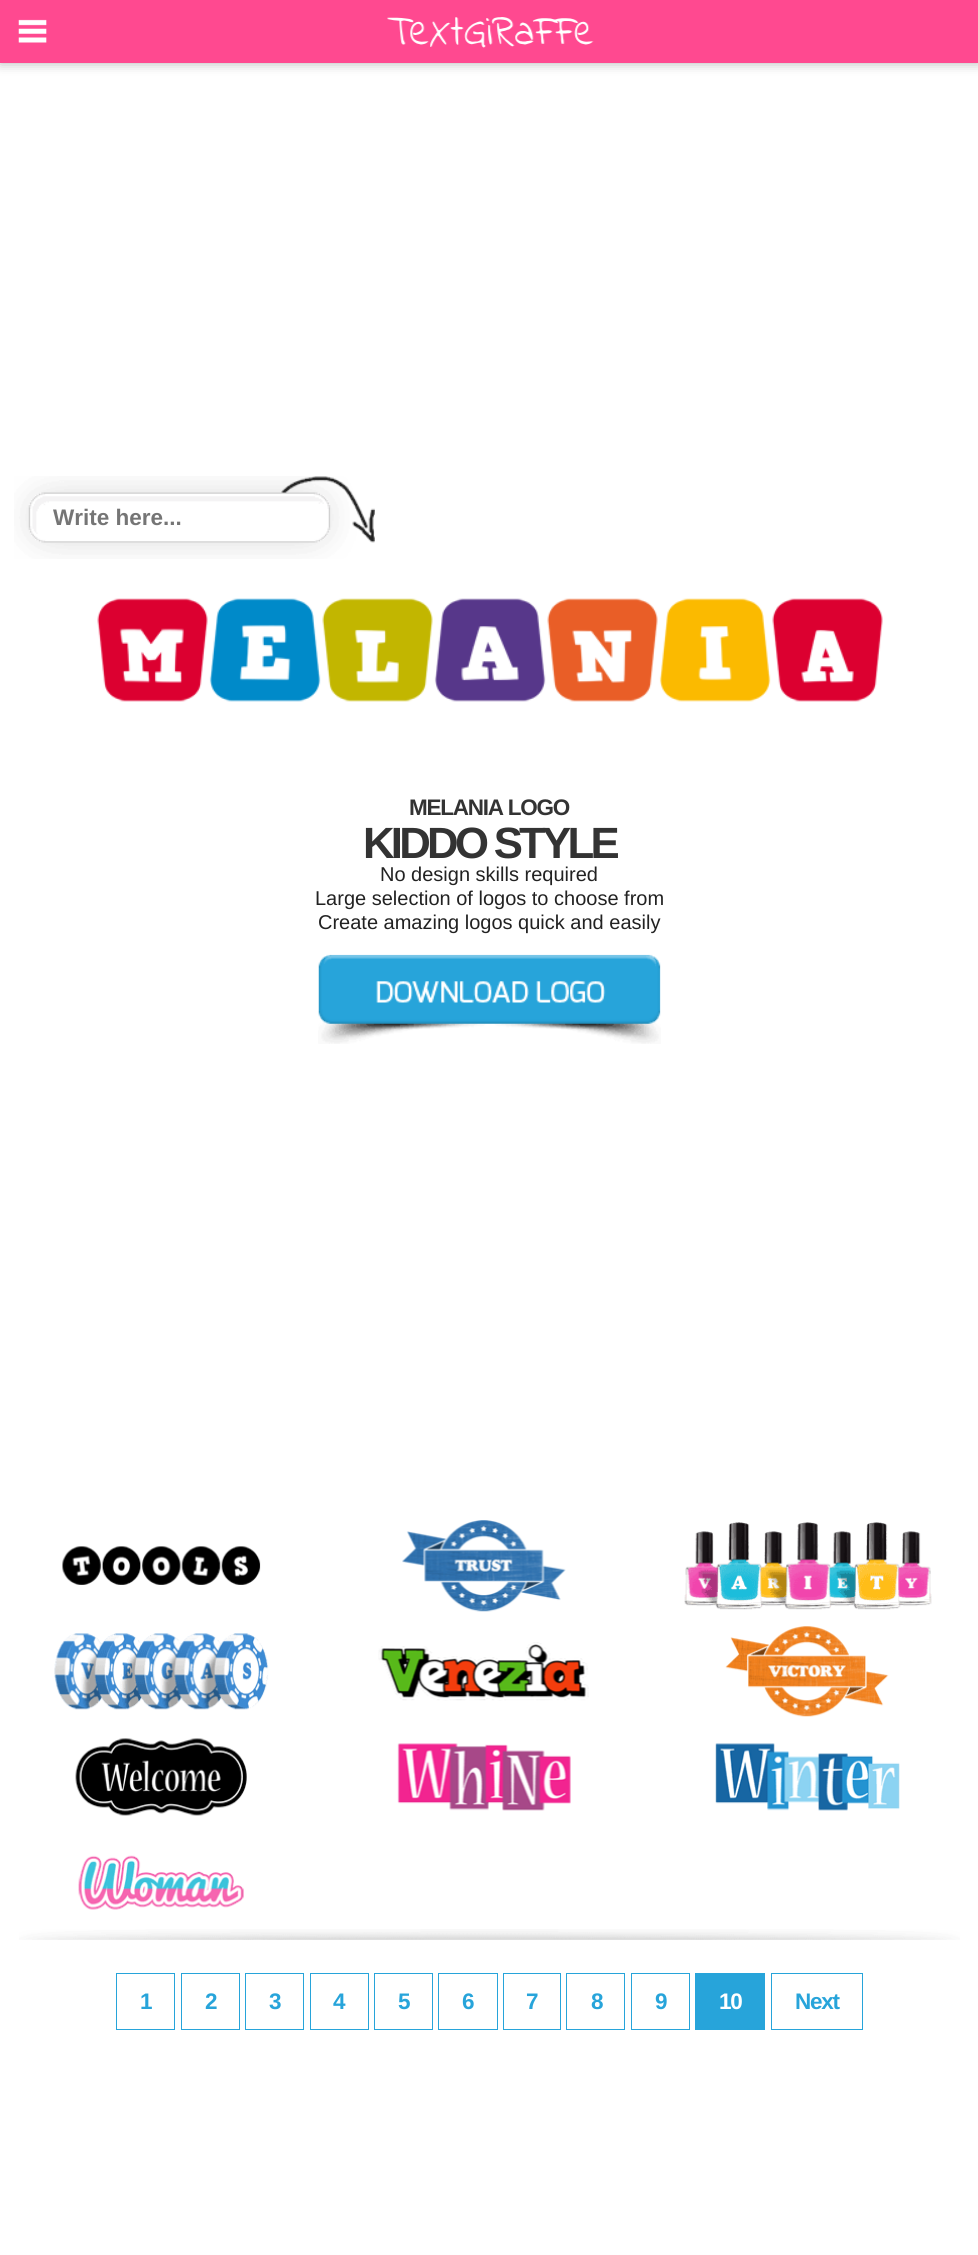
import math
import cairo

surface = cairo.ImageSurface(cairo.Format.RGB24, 978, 2255)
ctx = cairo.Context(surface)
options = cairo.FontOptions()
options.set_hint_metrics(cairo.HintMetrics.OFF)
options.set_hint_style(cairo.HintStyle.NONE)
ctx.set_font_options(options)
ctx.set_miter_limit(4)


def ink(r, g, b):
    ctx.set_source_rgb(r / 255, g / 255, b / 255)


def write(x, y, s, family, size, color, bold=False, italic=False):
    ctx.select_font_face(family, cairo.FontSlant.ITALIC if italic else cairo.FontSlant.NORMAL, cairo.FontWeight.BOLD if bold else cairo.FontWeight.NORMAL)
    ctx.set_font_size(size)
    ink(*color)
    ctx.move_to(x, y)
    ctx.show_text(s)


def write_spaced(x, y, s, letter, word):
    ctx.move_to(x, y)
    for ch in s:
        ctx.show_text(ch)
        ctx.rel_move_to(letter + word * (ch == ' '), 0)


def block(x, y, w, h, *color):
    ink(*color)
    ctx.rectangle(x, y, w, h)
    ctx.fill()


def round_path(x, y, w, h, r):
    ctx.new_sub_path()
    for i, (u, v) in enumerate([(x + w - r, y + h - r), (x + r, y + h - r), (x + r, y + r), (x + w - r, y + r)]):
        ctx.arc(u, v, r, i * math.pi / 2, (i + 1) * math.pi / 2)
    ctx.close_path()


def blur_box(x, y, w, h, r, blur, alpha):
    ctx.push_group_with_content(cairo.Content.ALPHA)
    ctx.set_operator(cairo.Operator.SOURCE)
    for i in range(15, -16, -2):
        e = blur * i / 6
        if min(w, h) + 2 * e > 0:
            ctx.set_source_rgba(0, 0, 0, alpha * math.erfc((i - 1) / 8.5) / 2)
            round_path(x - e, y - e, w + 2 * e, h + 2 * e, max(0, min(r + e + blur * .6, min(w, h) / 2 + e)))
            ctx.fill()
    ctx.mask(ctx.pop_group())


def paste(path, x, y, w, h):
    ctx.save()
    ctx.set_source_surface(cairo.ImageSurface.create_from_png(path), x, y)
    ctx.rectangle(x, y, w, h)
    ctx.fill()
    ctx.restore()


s1 = dict(family="Liberation Sans", size=22.5, color=(117, 117, 117), bold=True)
s2 = dict(family="Liberation Sans", size=20, color=(34, 34, 34))

ink(255, 255, 255)
ctx.paint()
ink(0, 0, 0)
blur_box(0, 0, 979, 63, 0, 6, 0.3)
block(0, 0, 978, 63, 255, 73, 144)
paste("pic1.png", 18, 19, 29, 24)
paste("pic2.png", 387, 17, 207, 31)
paste("pic3.png", 14, 476, 361, 83)
write(53, 525, "Write here...", **s1)
paste("pic4.png", 97, 598, 786, 104)
ink(51, 51, 51)
write_spaced(409, 815, "MELANIA LOGO", -1.25, 0)
ctx.set_font_size(43.75)
write_spaced(363, 858, "KIDDO STYLE", -3.75, 0)
write(380, 881, "No design skills required", **s2)
write(315, 905, "Large selection of logos to choose from", **s2)
write(318, 929, "Create amazing logos quick and easily", **s2)
paste("pic5.png", 318, 954, 343, 90)
paste("pic6.png", 62, 1546, 199, 39)
paste("pic7.png", 402, 1520, 164, 92)
paste("pic8.png", 684, 1522, 248, 88)
paste("pic9.png", 54, 1633, 215, 77)
paste("pic10.png", 378, 1642, 211, 59)
paste("pic11.png", 725, 1626, 164, 91)
paste("pic12.png", 75, 1738, 172, 78)
paste("pic13.png", 397, 1743, 174, 68)
paste("pic14.png", 715, 1743, 185, 68)
paste("pic15.png", 78, 1855, 166, 55)
paste("pic16.png", 19, 1929, 941, 11)
ctx.rectangle(116.5, 1973.5, 58, 56)
ink(39, 164, 218)
ctx.set_line_width(1)
ctx.stroke()
ctx.select_font_face("Liberation Sans", cairo.FontSlant.NORMAL, cairo.FontWeight.BOLD)
ctx.set_font_size(22.5)
write_spaced(140, 2009, "1", -1.25, 0)
ctx.rectangle(181.5, 1973.5, 58, 56)
ctx.stroke()
write_spaced(205, 2009, "2", -1.25, 0)
ctx.rectangle(245.5, 1973.5, 58, 56)
ctx.stroke()
write_spaced(269, 2009, "3", -1.25, 0)
ctx.rectangle(310.5, 1973.5, 58, 56)
ctx.stroke()
write_spaced(333, 2009, "4", -1.25, 0)
ctx.rectangle(374.5, 1973.5, 58, 56)
ctx.stroke()
write_spaced(398, 2009, "5", -1.25, 0)
ctx.rectangle(438.5, 1973.5, 59, 56)
ctx.stroke()
write_spaced(462, 2009, "6", -1.25, 0)
ctx.rectangle(503.5, 1973.5, 57, 56)
ctx.stroke()
write_spaced(526, 2009, "7", -1.25, 0)
ctx.rectangle(566.5, 1973.5, 58, 56)
ctx.stroke()
write_spaced(591, 2009, "8", -1.25, 0)
ctx.rectangle(631.5, 1973.5, 58, 56)
ctx.stroke()
write_spaced(655, 2009, "9", -1.25, 0)
block(695, 1973, 70, 57, 39, 164, 218)
ink(255, 255, 255)
write_spaced(719, 2009, "10", -1.25, 0)
ctx.rectangle(771.5, 1973.5, 91, 56)
ink(39, 164, 218)
ctx.stroke()
write_spaced(795, 2009, "Next", -1.25, 0)
surface.write_to_png("screenshot.png")
